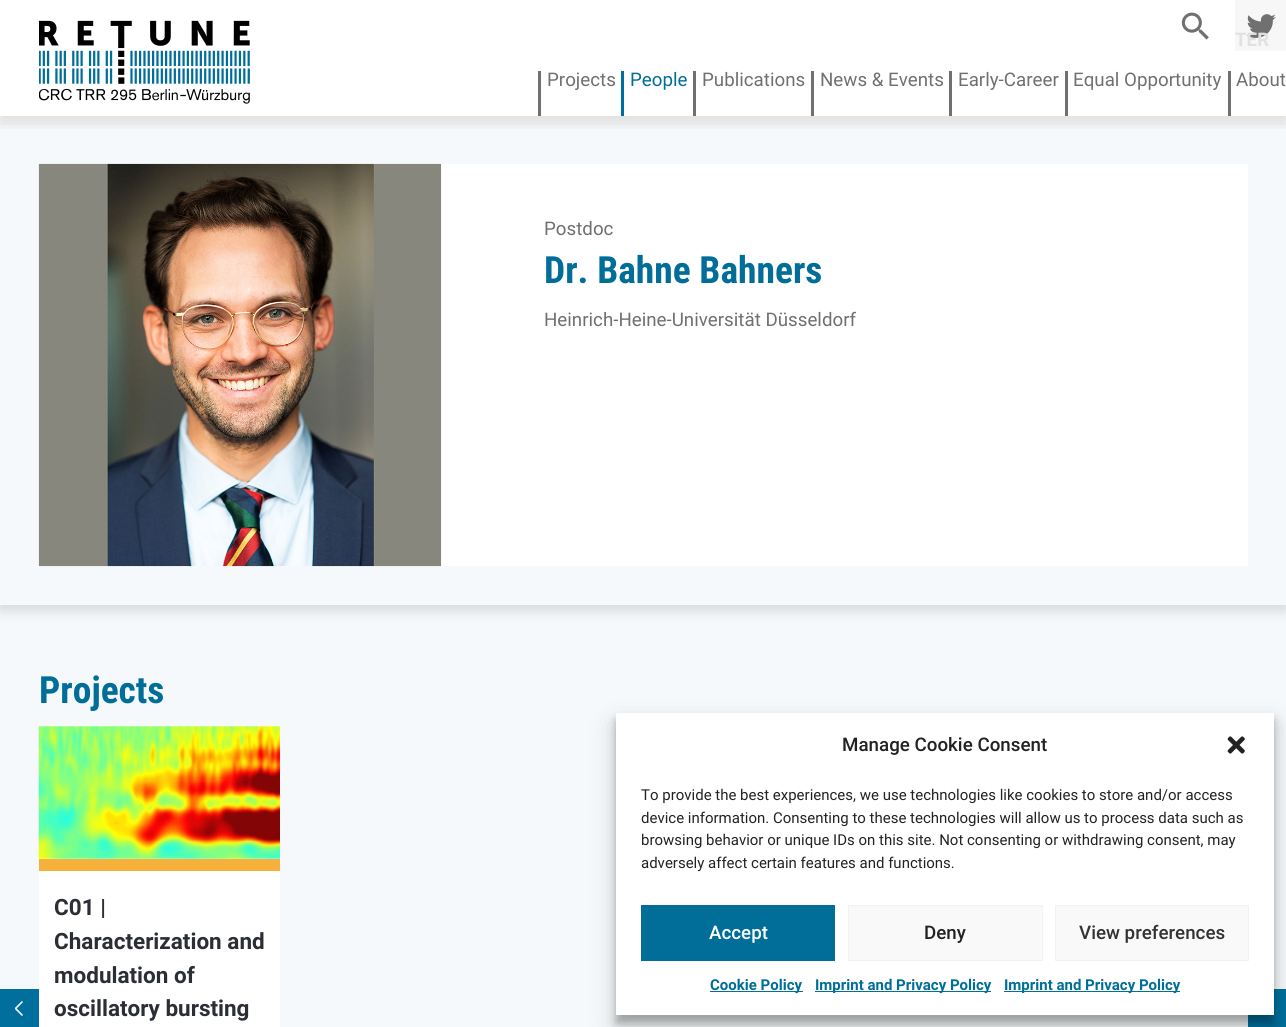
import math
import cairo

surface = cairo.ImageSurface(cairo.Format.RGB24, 1286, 1027)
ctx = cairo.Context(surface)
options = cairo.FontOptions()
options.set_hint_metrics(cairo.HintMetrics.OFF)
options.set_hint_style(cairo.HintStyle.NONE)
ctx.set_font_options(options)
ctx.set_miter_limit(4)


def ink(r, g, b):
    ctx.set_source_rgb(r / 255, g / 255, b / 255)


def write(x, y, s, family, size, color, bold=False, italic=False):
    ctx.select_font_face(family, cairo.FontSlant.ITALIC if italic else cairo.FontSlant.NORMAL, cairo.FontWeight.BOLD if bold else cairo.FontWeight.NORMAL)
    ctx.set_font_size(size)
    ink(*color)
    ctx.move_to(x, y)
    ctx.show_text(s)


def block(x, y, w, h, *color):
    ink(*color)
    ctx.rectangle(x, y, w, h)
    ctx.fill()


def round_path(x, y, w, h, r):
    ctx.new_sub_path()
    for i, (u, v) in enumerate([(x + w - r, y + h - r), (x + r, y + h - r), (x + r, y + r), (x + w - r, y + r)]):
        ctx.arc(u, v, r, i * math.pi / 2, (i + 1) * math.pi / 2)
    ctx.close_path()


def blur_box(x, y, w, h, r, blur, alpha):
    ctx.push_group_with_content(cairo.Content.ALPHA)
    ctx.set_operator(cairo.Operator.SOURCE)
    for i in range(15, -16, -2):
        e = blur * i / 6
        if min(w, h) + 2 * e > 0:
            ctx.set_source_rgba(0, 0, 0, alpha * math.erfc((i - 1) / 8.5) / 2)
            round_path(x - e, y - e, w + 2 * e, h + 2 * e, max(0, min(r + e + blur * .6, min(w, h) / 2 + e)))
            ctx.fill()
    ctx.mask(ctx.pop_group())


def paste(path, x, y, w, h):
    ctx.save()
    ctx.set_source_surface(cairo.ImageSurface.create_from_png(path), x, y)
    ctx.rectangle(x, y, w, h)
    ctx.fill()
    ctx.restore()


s1 = dict(family="Roboto", size=18.75, color=(225, 225, 225), bold=True)
s2 = dict(family="Roboto", size=18.75, color=(112, 112, 112))
s3 = dict(family="Roboto", size=18.75, color=(0, 110, 153))
s4 = dict(family="Roboto Condensed", size=37.5, color=(0, 110, 153), bold=True)
s5 = dict(family="Roboto", size=22.5, color=(43, 46, 52), bold=True)
s6 = dict(family="Roboto Medium", size=18.75, color=(34, 34, 34))
s7 = dict(family="Roboto", size=15, color=(34, 34, 34))
s8 = dict(family="Roboto Medium", size=18.75, color=(255, 255, 255))
s9 = dict(family="Roboto Medium", size=18.75, color=(51, 51, 51))
s10 = dict(family="Roboto", size=15, color=(0, 110, 153), bold=True)

ink(255, 255, 255)
ctx.paint()
block(0, 605, 1286, 422, 245, 249, 251)
ink(0, 0, 0)
blur_box(0, 129, 1286, 480, 0, 7.5, 0.16)
block(0, 125, 1286, 480, 245, 249, 251)
ctx.save()
ctx.rectangle(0, 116, 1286, 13)
ctx.clip()
ink(0, 0, 0)
blur_box(0, 4, 1286, 116, 0, 7.5, 0.16)
ctx.restore()
paste("pic1.png", 39, 20, 211, 84)
paste("pic2.png", 1181, 12, 28, 28)
paste("pic3.png", 1235, 0, 51, 51)
write(1235, 46, "TER", **s1)
block(538, 71, 3, 45, 112, 112, 112)
write(547, 86, "Projects", **s2)
block(621, 71, 3, 45, 0, 111, 157)
write(630, 86, "People", **s3)
block(693, 71, 3, 45, 112, 112, 112)
write(702, 86, "Publications", **s2)
block(811, 71, 3, 45, 112, 112, 112)
write(820, 86, "News & Events", **s2)
block(949, 71, 3, 45, 112, 112, 112)
write(958, 86, "Early-Career", **s2)
block(1065, 71, 3, 45, 112, 112, 112)
write(1073, 86, "Equal Opportunity", **s2)
block(1228, 71, 3, 45, 112, 112, 112)
write(1236, 86, "About", **s2)
block(441, 164, 807, 402, 255, 255, 255)
paste("pic4.png", 38, 163, 404, 404)
write(544, 235, "Postdoc", **s2)
write(544, 283, "Dr. Bahne Bahners", **s4)
write(544, 326, "Heinrich-Heine-Universität Düsseldorf", **s2)
write(39, 703, "Projects", **s4)
block(39, 726, 241, 301, 255, 255, 255)
block(39, 859, 241, 12, 246, 176, 60)
paste("pic5.png", 38, 726, 242, 133)
write(54, 915, "C01 |", **s5)
write(54, 949, "Characterization and", **s5)
write(54, 983, "modulation of", **s5)
write(54, 1016, "oscillatory bursting", **s5)
block(0, 989, 39, 38, 0, 111, 157)
ctx.save()
ctx.new_path()
ctx.move_to(15, 1016)
ctx.line_to(15, 1000.5)
ctx.line_to(23.5, 1000.5)
ctx.line_to(23.5, 1016)
ctx.close_path()
ctx.clip()
ctx.new_path()
ctx.move_to(22, 1002)
ctx.line_to(15.5, 1008.5)
ctx.line_to(22, 1015)
ink(254, 254, 254)
ctx.set_line_width(1.6)
ctx.set_line_cap(cairo.LineCap.ROUND)
ctx.set_line_join(cairo.LineJoin.ROUND)
ctx.stroke()
ctx.restore()
block(1248, 989, 38, 38, 0, 111, 157)
ink(0, 0, 0)
blur_box(616, 720, 658, 303, 0, 4, 0.23)
blur_box(616, 725, 658, 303, 0, 12.5, 0.19)
block(616, 713, 658, 302, 255, 255, 255)
write(842, 751, "Manage Cookie Consent", **s6)
paste("pic6.png", 1227, 736, 18, 18)
write(641, 800, "To provide the best experiences, we use technologies like cookies to store and/or access", **s7)
write(641, 823, "device information. Consenting to these technologies will allow us to process data such as", **s7)
write(641, 845, "browsing behavior or unique IDs on this site. Not consenting or withdrawing consent, may", **s7)
write(641, 868, "adversely affect certain features and functions.", **s7)
ink(0, 110, 153)
ctx.rectangle(641.5, 905.5, 193, 55)
ctx.fill_preserve()
ink(0, 111, 157)
ctx.set_line_width(1)
ctx.stroke()
write(709, 939, "Accept", **s8)
ink(249, 249, 249)
ctx.rectangle(848.5, 905.5, 194, 55)
ctx.fill_preserve()
ink(242, 242, 242)
ctx.stroke()
write(924, 939, "Deny", **s6)
ink(249, 249, 249)
ctx.rectangle(1055.5, 905.5, 193, 55)
ctx.fill_preserve()
ink(242, 242, 242)
ctx.stroke()
write(1079, 939, "View preferences", **s9)
block(710, 991, 93, 1, 0, 111, 157)
write(710, 990, "Cookie Policy", **s10)
block(815, 991, 176, 1, 0, 111, 157)
write(815, 990, "Imprint and Privacy Policy", **s10)
block(1004, 991, 176, 1, 0, 111, 157)
write(1004, 990, "Imprint and Privacy Policy", **s10)
surface.write_to_png("screenshot.png")
